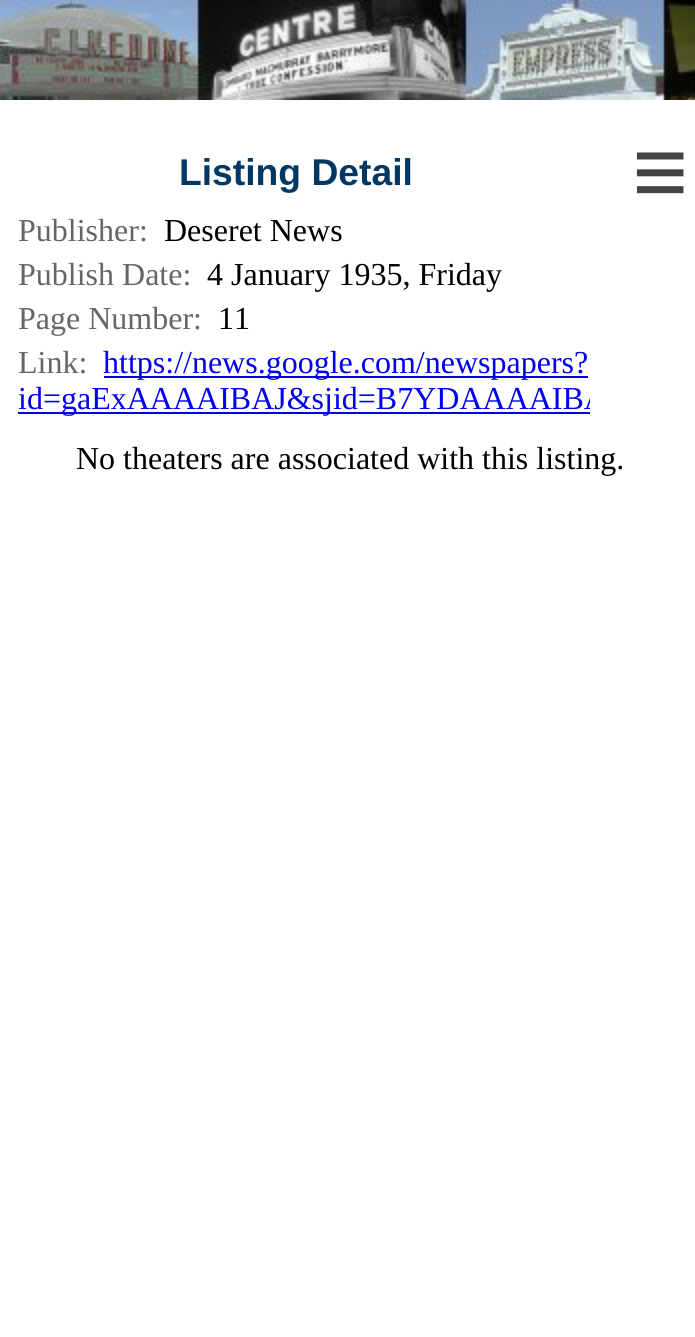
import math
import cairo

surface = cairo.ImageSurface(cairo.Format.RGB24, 695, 1337)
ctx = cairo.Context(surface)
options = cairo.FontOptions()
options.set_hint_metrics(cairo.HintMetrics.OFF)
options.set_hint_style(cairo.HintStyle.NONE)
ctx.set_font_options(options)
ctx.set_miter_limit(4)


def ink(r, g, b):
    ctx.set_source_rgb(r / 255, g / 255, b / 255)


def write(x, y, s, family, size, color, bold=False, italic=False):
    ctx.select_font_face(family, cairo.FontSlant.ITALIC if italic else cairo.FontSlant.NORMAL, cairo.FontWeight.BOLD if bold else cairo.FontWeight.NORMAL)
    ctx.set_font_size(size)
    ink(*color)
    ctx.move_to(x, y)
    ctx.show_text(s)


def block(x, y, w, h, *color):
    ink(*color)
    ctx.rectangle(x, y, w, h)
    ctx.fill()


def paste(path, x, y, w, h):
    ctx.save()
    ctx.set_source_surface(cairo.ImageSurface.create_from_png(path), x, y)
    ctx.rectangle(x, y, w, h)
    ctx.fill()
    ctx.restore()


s1 = dict(family="Liberation Sans", size=37.25, color=(0, 56, 99), bold=True)
s2 = dict(family="Liberation Serif", size=100, color=(68, 68, 68), bold=True)
s3 = dict(family="Liberation Serif", size=32, color=(102, 102, 102))
s4 = dict(family="Liberation Serif", size=32, color=(0, 0, 0))
s5 = dict(family="Liberation Serif", size=32, color=(0, 0, 238))

ink(255, 255, 255)
ctx.paint()
paste("pic1.png", 0, 0, 695, 100)
write(179, 185, "Listing Detail", **s1)
write(632, 206, "≡", **s2)
write(18, 241, "Publisher:", **s3)
write(164, 241, "Deseret News", **s4)
write(18, 285, "Publish Date:", **s3)
write(207, 285, "4 January 1935, Friday", **s4)
write(18, 329, "Page Number:", **s3)
write(218, 329, "11", **s4)
write(18, 373, "Link:", **s3)
block(104, 376, 484, 2, 0, 0, 238)
write(103, 373, "https://news.google.com/newspapers?", **s5)
block(18, 412, 572, 2, 0, 0, 238)
ctx.save()
ctx.rectangle(18, 346, 572, 72)
ctx.clip()
write(18, 409, "id=gaExAAAAIBAJ&sjid=B7YDAAAAIBA", **s5)
ctx.restore()
write(76, 469, "No theaters are associated with this listing.", **s4)
surface.write_to_png("screenshot.png")
